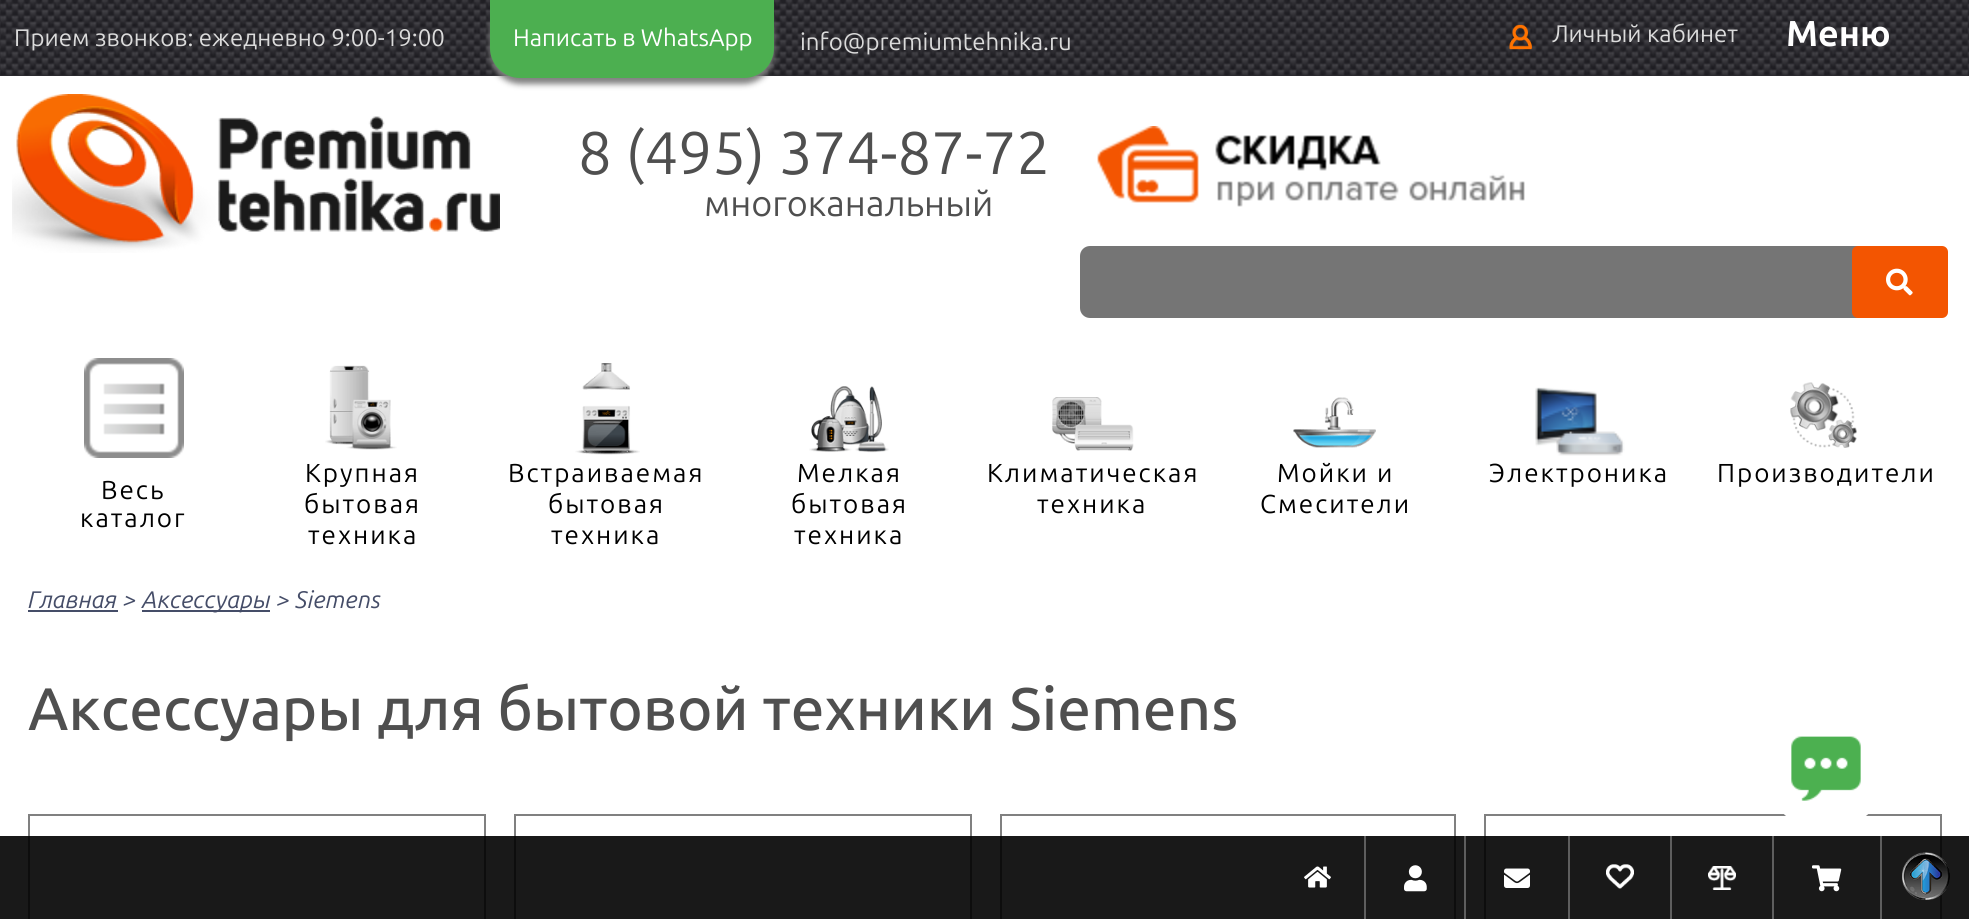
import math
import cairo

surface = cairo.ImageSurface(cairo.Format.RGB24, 1969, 919)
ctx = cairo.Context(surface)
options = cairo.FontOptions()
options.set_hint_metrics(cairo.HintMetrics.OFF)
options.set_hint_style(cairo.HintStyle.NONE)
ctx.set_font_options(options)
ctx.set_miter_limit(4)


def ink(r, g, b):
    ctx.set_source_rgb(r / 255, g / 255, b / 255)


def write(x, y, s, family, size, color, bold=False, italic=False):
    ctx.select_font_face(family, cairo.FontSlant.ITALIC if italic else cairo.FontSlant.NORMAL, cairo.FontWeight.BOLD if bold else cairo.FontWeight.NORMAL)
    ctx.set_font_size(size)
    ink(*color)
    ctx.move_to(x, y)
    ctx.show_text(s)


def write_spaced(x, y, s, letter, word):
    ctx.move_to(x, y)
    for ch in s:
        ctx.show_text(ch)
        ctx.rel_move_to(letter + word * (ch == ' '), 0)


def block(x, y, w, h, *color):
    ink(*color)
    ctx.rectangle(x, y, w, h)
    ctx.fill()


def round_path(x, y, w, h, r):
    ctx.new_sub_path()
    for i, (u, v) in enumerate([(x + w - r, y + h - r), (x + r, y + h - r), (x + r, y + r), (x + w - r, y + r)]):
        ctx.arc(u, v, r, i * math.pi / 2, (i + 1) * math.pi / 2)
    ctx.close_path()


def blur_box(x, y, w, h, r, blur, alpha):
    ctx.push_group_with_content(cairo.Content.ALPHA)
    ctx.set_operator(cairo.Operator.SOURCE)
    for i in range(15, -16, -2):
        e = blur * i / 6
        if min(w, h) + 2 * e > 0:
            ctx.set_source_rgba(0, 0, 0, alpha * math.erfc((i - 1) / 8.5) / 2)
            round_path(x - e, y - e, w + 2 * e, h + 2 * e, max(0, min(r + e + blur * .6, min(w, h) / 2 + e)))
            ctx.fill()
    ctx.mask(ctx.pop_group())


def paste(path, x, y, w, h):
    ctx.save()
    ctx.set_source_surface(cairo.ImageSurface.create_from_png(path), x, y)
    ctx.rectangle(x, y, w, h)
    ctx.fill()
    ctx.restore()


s1 = dict(family="Ubuntu", size=24, color=(219, 219, 219))
s2 = dict(family="Ubuntu", size=24, color=(255, 255, 255))
s3 = dict(family="Ubuntu", size=36, color=(255, 255, 255), bold=True)
s4 = dict(family="Ubuntu", size=60, color=(79, 79, 79))
s5 = dict(family="Ubuntu", size=36, color=(79, 79, 79))
s6 = dict(family="Ubuntu", size=24, color=(69, 77, 104), italic=True)
s7 = dict(family="Ubuntu Medium", size=60, color=(79, 79, 79))

ink(255, 255, 255)
ctx.paint()
paste("pic1.png", 0, 0, 1969, 76)
write(14, 46, "Прием звонков: ежедневно 9:00-19:00", **s1)
ink(128, 128, 128)
blur_box(490, 2, 284, 82, 30, 3, 1)
ink(76, 175, 80)
ctx.new_path()
ctx.move_to(490, -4)
ctx.line_to(774, -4)
ctx.line_to(774, 48)
ctx.curve_to(774, 64.5, 760.5, 78, 744, 78)
ctx.line_to(520, 78)
ctx.curve_to(503.5, 78, 490, 64.5, 490, 48)
ctx.close_path()
ctx.fill()
write(513, 46, "Написать в WhatsApp", **s2)
write(800, 50, "info@premiumtehnika.ru", **s1)
paste("pic2.png", 1509, 24, 23, 26)
write(1552, 42, "Личный кабинет", **s1)
write(1786, 46, "Меню", **s3)
paste("pic3.png", 12, 94, 488, 159)
write(578, 174, "8 (495) 374-87-72", **s4)
write(704, 216, "многоканальный", **s5)
paste("pic4.png", 1097, 126, 428, 81)
ink(117, 117, 117)
round_path(1080, 246, 862, 72, 10)
ctx.fill()
ink(243, 85, 1)
round_path(1852, 246, 96, 72, 6)
ctx.fill()
paste("pic5.png", 1886, 268, 27, 28)
paste("pic6.png", 325, 365, 72, 85)
ctx.set_font_size(26)
ink(0, 0, 0)
write_spaced(305, 482, "Крупная", 2, 0)
write_spaced(304, 513, "бытовая", 2, 0)
write_spaced(308, 544, "техника", 2, 0)
paste("pic7.png", 575, 363, 65, 92)
write_spaced(508, 482, "Встраиваемая", 2, 0)
write_spaced(548, 513, "бытовая", 2, 0)
write_spaced(551, 544, "техника", 2, 0)
paste("pic8.png", 809, 386, 80, 67)
write_spaced(797, 482, "Мелкая", 2, 0)
write_spaced(791, 513, "бытовая", 2, 0)
write_spaced(794, 544, "техника", 2, 0)
paste("pic9.png", 1052, 397, 82, 54)
write_spaced(987, 482, "Климатическая", 2, 0)
write_spaced(1037, 513, "техника", 2, 0)
paste("pic10.png", 1293, 397, 83, 51)
write_spaced(1277, 482, "Мойки и", 2, 0)
write_spaced(1260, 513, "Смесители", 2, 0)
paste("pic11.png", 1535, 387, 90, 69)
write_spaced(1489, 482, "Электроника", 2, 0)
paste("pic12.png", 1790, 382, 67, 66)
write_spaced(1717, 482, "Производители", 2, 0)
paste("pic13.png", 84, 358, 100, 100)
write_spaced(101, 499, "Весь", 2, 0)
write_spaced(80, 527, "каталог", 2, 0)
write(28, 608, "Главная >", **s6)
block(28, 610, 90, 2, 69, 77, 104)
block(142, 610, 128, 2, 69, 77, 104)
write(142, 608, "Аксессуары > Siemens", **s6)
write(28, 730, "Аксессуары для бытовой техники Siemens", **s7)
ctx.rectangle(29, 815, 456, 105)
ink(128, 128, 128)
ctx.stroke()
ctx.rectangle(515, 815, 456, 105)
ctx.stroke()
ctx.rectangle(1001, 815, 454, 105)
ctx.stroke()
ctx.rectangle(1485, 815, 456, 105)
ctx.stroke()
ink(255, 255, 255)
ctx.arc(1826, 766, 64, 0, 2 * math.pi)
ctx.fill()
paste("pic14.png", 1791, 736, 70, 65)
ctx.set_source_rgba(0, 0, 0, 0.9)
ctx.rectangle(0, 836, 1969, 83)
ctx.fill()
paste("pic15.png", 1304, 866, 27, 22)
block(1364, 836, 2, 83, 94, 94, 94)
paste("pic16.png", 1404, 865, 23, 27)
block(1464, 836, 2, 83, 94, 94, 94)
paste("pic17.png", 1504, 868, 26, 20)
block(1568, 836, 2, 83, 94, 94, 94)
paste("pic18.png", 1606, 864, 28, 25)
ctx.set_source_rgba(1, 1, 1, 0.3)
ctx.rectangle(1670, 836, 2, 83)
ctx.fill()
paste("pic19.png", 1708, 866, 28, 24)
ctx.rectangle(1772, 836, 2, 83)
ctx.fill()
paste("pic20.png", 1812, 865, 30, 27)
block(1880, 836, 2, 83, 94, 94, 94)
paste("pic21.png", 1902, 852, 48, 48)
surface.write_to_png("screenshot.png")
